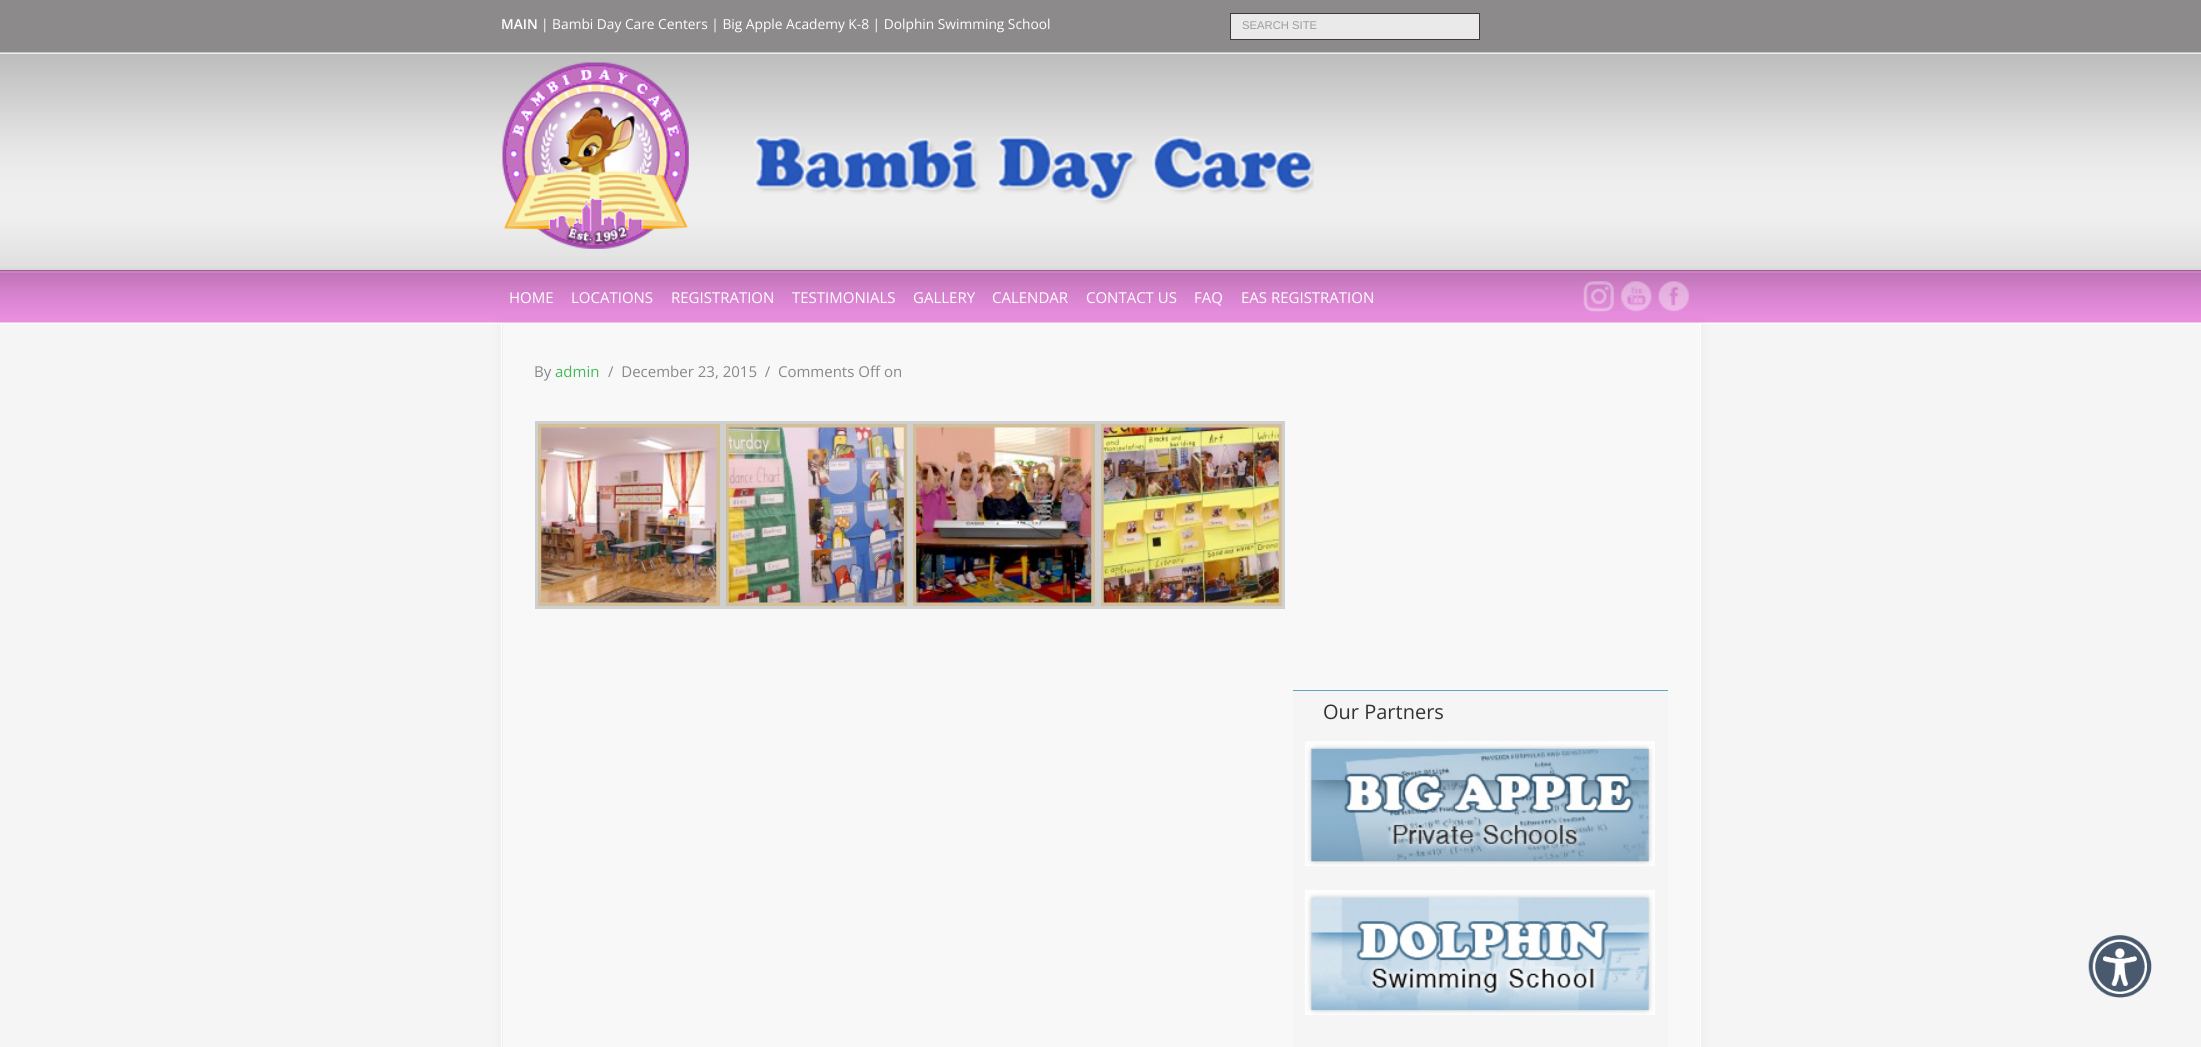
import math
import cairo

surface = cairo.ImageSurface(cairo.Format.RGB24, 2201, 1047)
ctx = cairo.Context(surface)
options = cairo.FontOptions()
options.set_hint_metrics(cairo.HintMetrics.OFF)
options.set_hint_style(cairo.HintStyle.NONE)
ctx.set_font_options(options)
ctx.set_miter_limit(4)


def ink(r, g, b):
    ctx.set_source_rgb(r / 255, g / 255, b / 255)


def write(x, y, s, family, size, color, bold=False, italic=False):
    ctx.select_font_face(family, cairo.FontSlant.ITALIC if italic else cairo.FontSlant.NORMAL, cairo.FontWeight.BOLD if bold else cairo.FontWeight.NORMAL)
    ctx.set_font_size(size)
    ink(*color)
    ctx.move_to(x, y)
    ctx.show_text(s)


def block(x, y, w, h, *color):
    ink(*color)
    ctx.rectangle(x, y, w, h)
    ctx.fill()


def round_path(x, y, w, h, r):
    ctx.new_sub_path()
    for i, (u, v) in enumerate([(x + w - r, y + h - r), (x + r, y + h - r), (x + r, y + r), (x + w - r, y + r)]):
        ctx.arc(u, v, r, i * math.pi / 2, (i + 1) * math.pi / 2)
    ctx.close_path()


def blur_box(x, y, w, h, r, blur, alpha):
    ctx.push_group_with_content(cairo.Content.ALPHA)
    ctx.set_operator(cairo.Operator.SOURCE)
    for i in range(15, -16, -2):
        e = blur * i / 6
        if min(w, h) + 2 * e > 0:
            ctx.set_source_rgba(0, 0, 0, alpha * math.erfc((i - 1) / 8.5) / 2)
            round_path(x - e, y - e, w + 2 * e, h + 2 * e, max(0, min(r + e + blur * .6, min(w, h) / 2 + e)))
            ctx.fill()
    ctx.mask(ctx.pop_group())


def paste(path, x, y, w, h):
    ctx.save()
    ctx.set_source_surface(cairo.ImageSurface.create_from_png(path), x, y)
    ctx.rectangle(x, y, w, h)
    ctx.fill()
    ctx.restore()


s1 = dict(family="Open Sans SemiBold", size=13.75, color=(255, 255, 255))
s2 = dict(family="Open Sans", size=13.75, color=(255, 255, 255))
s3 = dict(family="Liberation Sans", size=11.25, color=(157, 156, 156))
s4 = dict(family="Open Sans", size=15, color=(255, 255, 255))
s5 = dict(family="Open Sans", size=15, color=(136, 136, 136))
s6 = dict(family="Open Sans", size=15, color=(70, 184, 89))
s7 = dict(family="Open Sans", size=20, color=(51, 51, 51))

ink(255, 255, 255)
ctx.paint()
paste("pic1.png", 0, 0, 2201, 323)
write(501, 29, "MAIN", **s1)
write(541, 29, "| Bambi Day Care Centers | Big Apple Academy K-8 | Dolphin Swimming School", **s2)
ink(234, 234, 234)
ctx.rectangle(1230.5, 13.5, 249, 26)
ctx.fill_preserve()
ink(59, 59, 59)
ctx.set_line_width(1)
ctx.stroke()
write(1242, 29, "SEARCH SITE", **s3)
paste("pic2.png", 502, 62, 812, 187)
write(509, 303, "HOME", **s4)
write(571, 303, "LOCATIONS", **s4)
write(671, 303, "REGISTRATION", **s4)
write(792, 303, "TESTIMONIALS", **s4)
write(913, 303, "GALLERY", **s4)
write(992, 303, "CALENDAR", **s4)
write(1086, 303, "CONTACT US", **s4)
block(0, 324, 2201, 723, 245, 245, 245)
ink(0, 0, 0)
blur_box(501, 324, 1200, 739, 0, 6, 0.05)
write(1194, 303, "FAQ", **s4)
write(1241, 303, "EAS REGISTRATION", **s4)
paste("pic3.png", 1583, 281, 31, 31)
paste("pic4.png", 1621, 281, 31, 31)
paste("pic5.png", 1658, 281, 31, 31)
block(503, 324, 1197, 723, 248, 248, 248)
block(1700, 324, 1, 723, 255, 255, 255)
block(501, 324, 1, 723, 255, 255, 255)
write(534, 377, "By", **s5)
write(555, 377, "admin", **s6)
write(608, 377, "/  December 23, 2015  /", **s5)
write(778, 377, "Comments Off on", **s5)
ink(210, 190, 153)
ctx.rectangle(536.5, 422.5, 185, 185)
ctx.fill_preserve()
ink(207, 207, 207)
ctx.set_line_width(3)
ctx.stroke()
paste("pic6.png", 541, 427, 176, 176)
ink(210, 190, 153)
ctx.rectangle(724.5, 422.5, 184, 185)
ctx.fill_preserve()
ink(207, 207, 207)
ctx.stroke()
paste("pic7.png", 728, 427, 176, 176)
ink(210, 190, 153)
ctx.rectangle(911.5, 422.5, 185, 185)
ctx.fill_preserve()
ink(207, 207, 207)
ctx.stroke()
paste("pic8.png", 916, 427, 176, 176)
ink(210, 190, 153)
ctx.rectangle(1099.5, 422.5, 184, 185)
ctx.fill_preserve()
ink(207, 207, 207)
ctx.stroke()
paste("pic9.png", 1103, 427, 176, 176)
block(1293, 691, 375, 356, 245, 245, 245)
block(1293, 690, 375, 1, 100, 165, 196)
write(1323, 719, "Our Partners", **s7)
paste("pic10.png", 1305, 741, 350, 125)
paste("pic11.png", 1305, 890, 350, 125)
ink(255, 255, 255)
round_path(2089, 935, 62, 63, 31)
ctx.fill()
paste("pic12.png", 2088, 935, 64, 63)
surface.write_to_png("screenshot.png")
